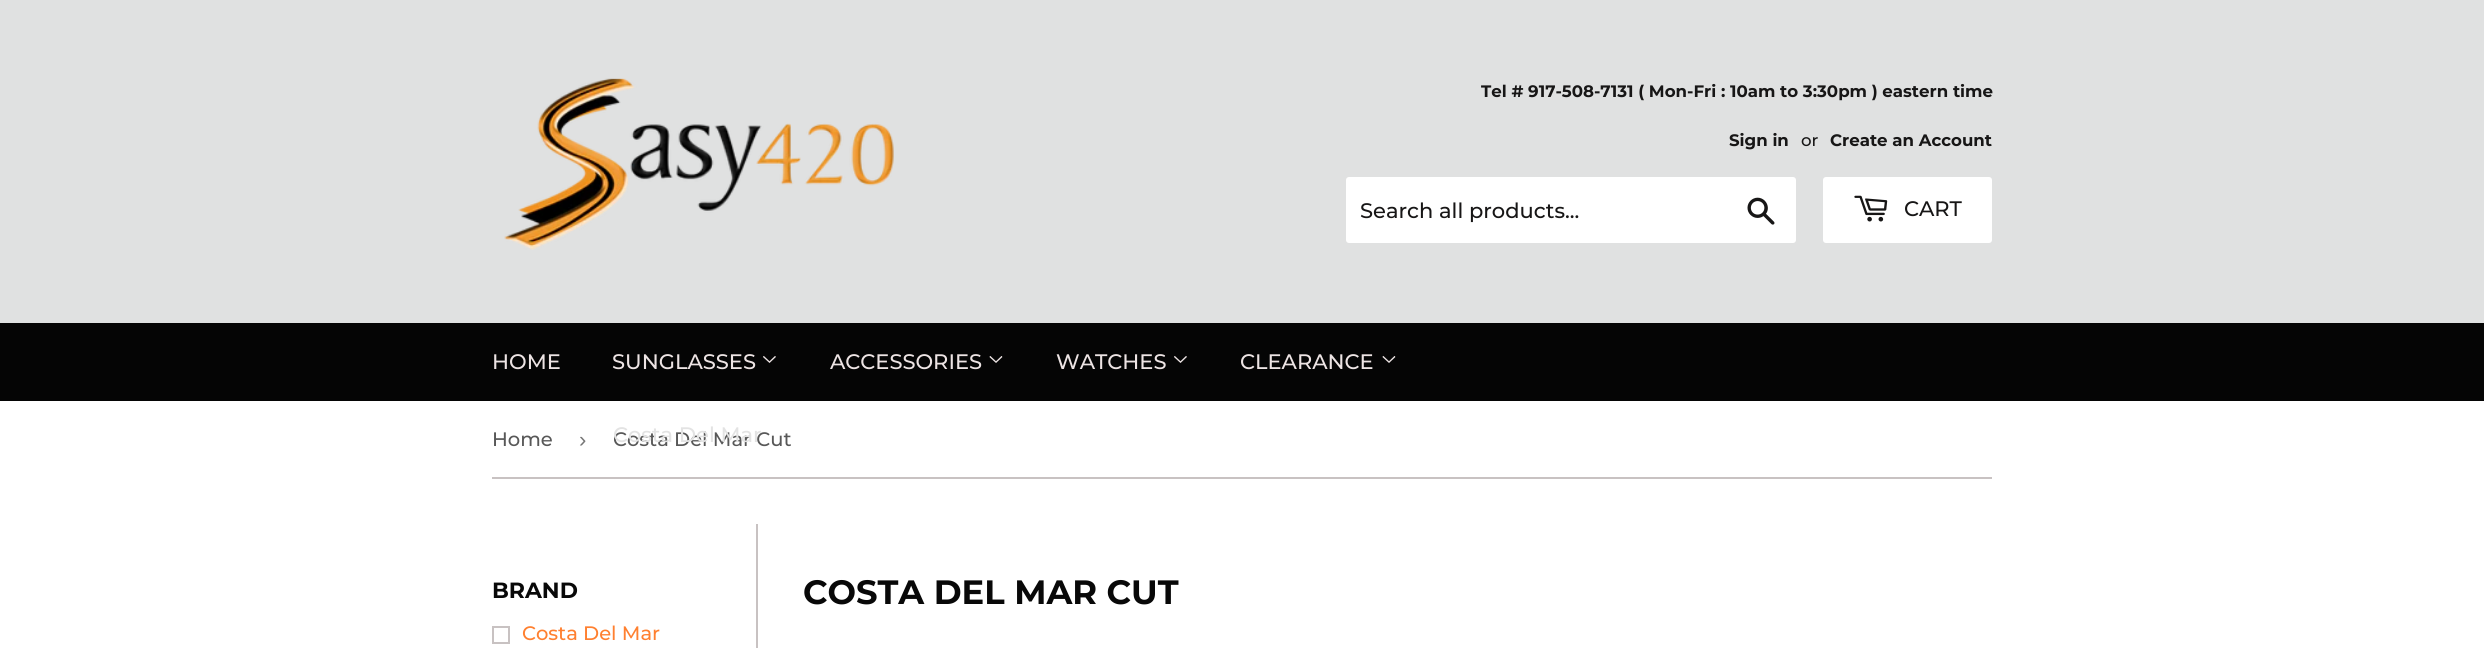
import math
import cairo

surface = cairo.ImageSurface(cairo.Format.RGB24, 2484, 648)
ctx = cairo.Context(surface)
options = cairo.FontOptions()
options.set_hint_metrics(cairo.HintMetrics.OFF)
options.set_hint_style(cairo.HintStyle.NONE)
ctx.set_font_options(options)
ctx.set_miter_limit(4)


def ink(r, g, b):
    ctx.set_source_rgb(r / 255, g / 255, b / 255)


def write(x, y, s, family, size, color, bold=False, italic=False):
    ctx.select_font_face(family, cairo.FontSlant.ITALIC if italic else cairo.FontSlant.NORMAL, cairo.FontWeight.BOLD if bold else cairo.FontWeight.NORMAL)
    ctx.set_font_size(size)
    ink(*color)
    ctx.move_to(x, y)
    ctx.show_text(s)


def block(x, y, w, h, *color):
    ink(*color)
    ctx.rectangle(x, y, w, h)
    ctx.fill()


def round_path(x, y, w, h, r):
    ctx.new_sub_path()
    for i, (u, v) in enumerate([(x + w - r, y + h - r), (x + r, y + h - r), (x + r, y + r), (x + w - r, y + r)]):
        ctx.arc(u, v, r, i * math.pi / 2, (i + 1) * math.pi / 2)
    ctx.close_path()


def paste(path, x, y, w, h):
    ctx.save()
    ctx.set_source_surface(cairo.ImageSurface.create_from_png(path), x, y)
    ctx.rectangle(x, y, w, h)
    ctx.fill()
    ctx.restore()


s1 = dict(family="Montserrat", size=16.6, color=(23, 22, 22), bold=True)
s2 = dict(family="Montserrat Medium", size=16.6, color=(23, 22, 22))
s3 = dict(family="Montserrat Medium", size=21, color=(23, 22, 22))
s4 = dict(family="Montserrat Medium", size=21, color=(237, 228, 228))
s5 = dict(family="Montserrat Medium", size=19.5, color=(88, 88, 88))
s6 = dict(family="Montserrat Medium", size=21, color=(227, 227, 227))
s7 = dict(family="Liberation Sans", size=22, color=(118, 118, 118))
s8 = dict(family="Montserrat", size=22, color=(8, 8, 8), bold=True)
s9 = dict(family="Montserrat Medium", size=19.5, color=(255, 128, 48))
s10 = dict(family="Montserrat", size=33.75, color=(8, 8, 8), bold=True)

ink(255, 255, 255)
ctx.paint()
block(0, 0, 2484, 323, 224, 225, 225)
paste("pic1.png", 504, 78, 390, 172)
write(1481, 97, "Tel # 917-508-7131 ( Mon-Fri : 10am to 3:30pm ) eastern time", **s1)
write(1729, 146, "Sign in", **s1)
write(1801, 146, "or", **s2)
write(1830, 146, "Create an Account", **s1)
ink(255, 255, 255)
round_path(1346, 177, 450, 66, 3)
ctx.fill()
write(1360, 218, "Search all products...", **s3)
paste("pic2.png", 1747, 197, 28, 28)
ink(255, 255, 255)
round_path(1823, 177, 169, 66, 3)
ctx.fill()
paste("pic3.png", 1854, 195, 34, 27)
write(1904, 216, "CART", **s3)
block(0, 323, 2484, 78, 5, 5, 5)
write(492, 369, "HOME", **s4)
write(612, 369, "SUNGLASSES", **s4)
paste("pic4.png", 763, 356, 13, 7)
ctx.save()
ctx.rectangle(614, 401, 189, 76)
ctx.clip()
write(613, 446, "Costa Del Mar Cut", **s5)
ctx.restore()
write(613, 442, "Costa Del Mar", **s6)
write(830, 369, "ACCESSORIES", **s4)
paste("pic5.png", 989, 356, 14, 7)
write(1056, 369, "WATCHES", **s4)
paste("pic4.png", 1174, 356, 13, 7)
write(1240, 369, "CLEARANCE", **s4)
paste("pic5.png", 1382, 356, 14, 7)
block(492, 477, 1500, 2, 200, 194, 194)
write(492, 446, "Home", **s5)
write(579, 447, "›", **s7)
write(492, 598, "BRAND", **s8)
ctx.rectangle(493, 627, 16, 16)
ink(200, 194, 194)
ctx.stroke()
write(522, 640, "Costa Del Mar", **s9)
block(756, 524, 2, 124, 200, 194, 194)
write(803, 604, "COSTA DEL MAR CUT", **s10)
surface.write_to_png("screenshot.png")
